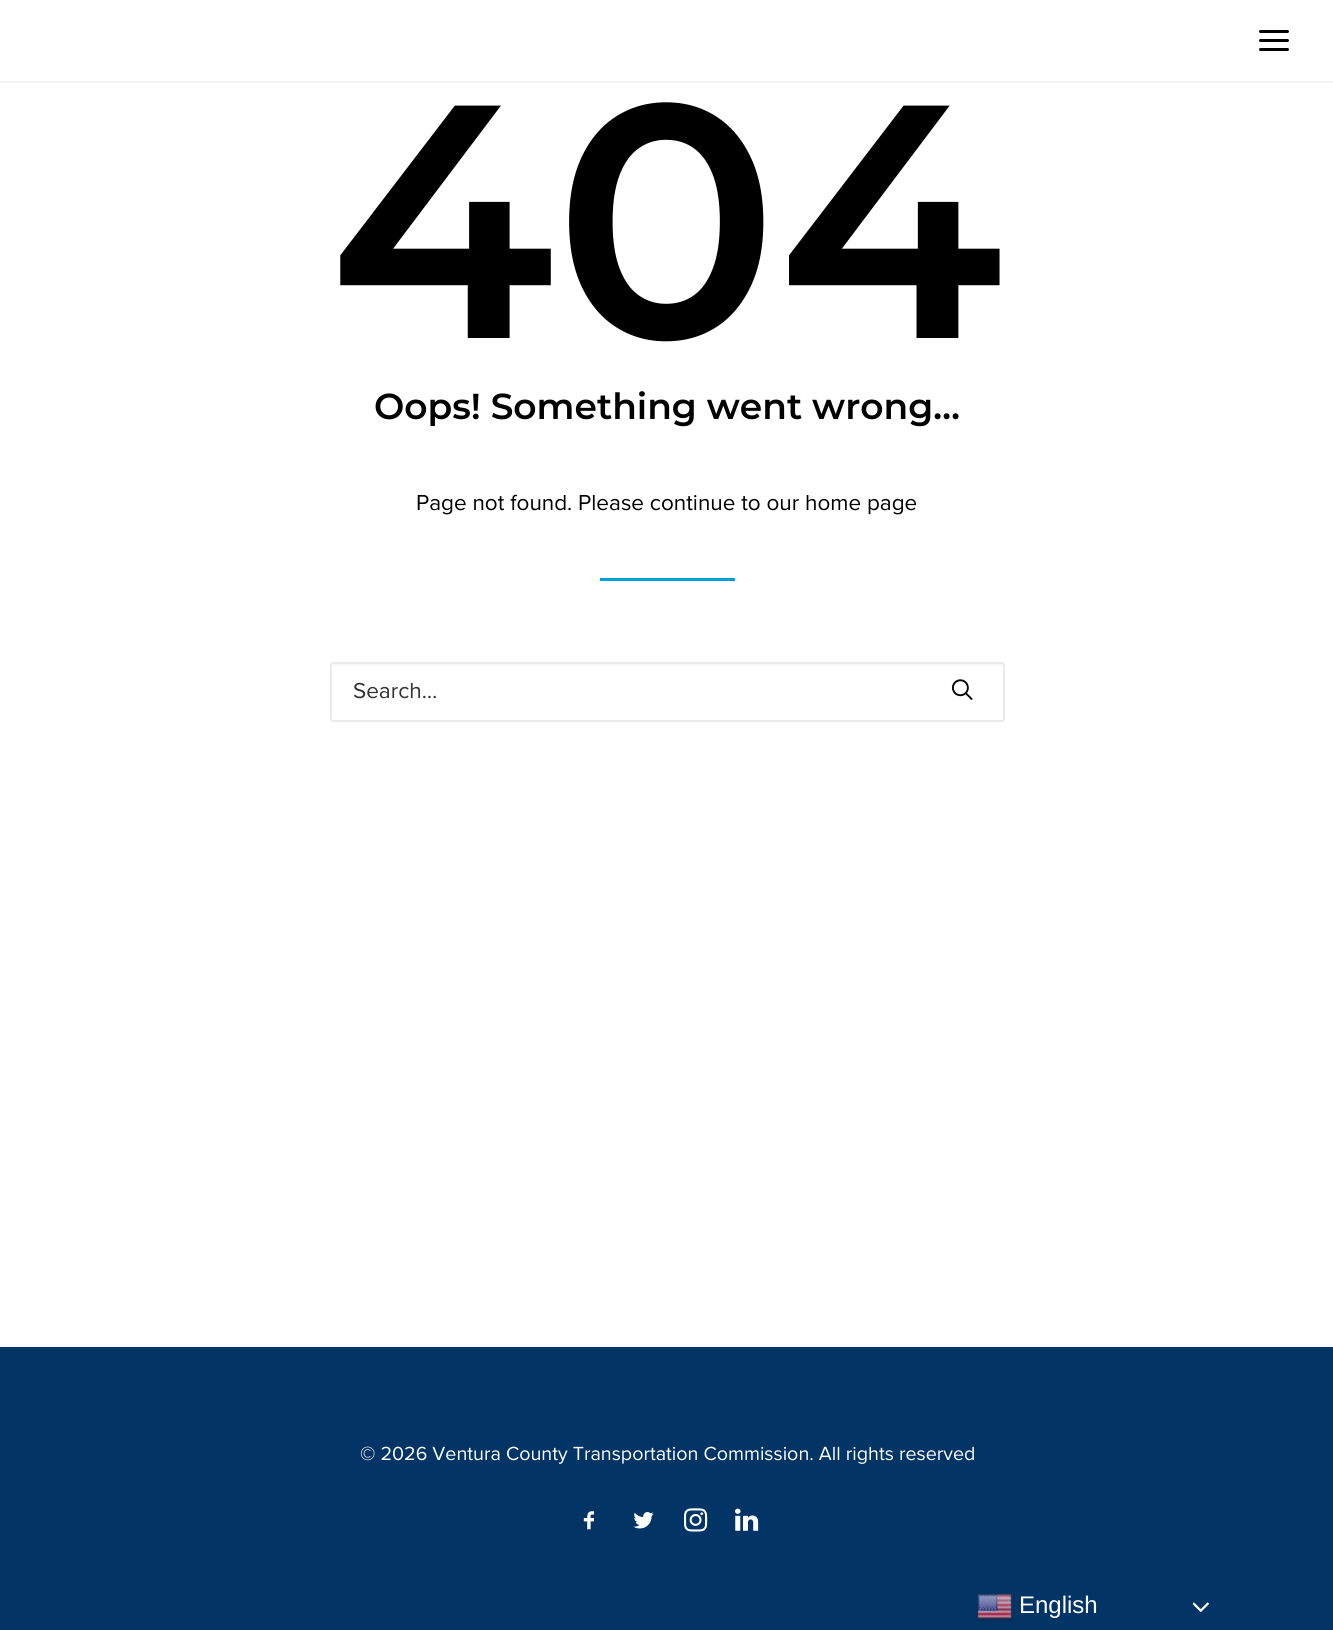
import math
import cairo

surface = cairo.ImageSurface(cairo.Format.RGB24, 1333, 1630)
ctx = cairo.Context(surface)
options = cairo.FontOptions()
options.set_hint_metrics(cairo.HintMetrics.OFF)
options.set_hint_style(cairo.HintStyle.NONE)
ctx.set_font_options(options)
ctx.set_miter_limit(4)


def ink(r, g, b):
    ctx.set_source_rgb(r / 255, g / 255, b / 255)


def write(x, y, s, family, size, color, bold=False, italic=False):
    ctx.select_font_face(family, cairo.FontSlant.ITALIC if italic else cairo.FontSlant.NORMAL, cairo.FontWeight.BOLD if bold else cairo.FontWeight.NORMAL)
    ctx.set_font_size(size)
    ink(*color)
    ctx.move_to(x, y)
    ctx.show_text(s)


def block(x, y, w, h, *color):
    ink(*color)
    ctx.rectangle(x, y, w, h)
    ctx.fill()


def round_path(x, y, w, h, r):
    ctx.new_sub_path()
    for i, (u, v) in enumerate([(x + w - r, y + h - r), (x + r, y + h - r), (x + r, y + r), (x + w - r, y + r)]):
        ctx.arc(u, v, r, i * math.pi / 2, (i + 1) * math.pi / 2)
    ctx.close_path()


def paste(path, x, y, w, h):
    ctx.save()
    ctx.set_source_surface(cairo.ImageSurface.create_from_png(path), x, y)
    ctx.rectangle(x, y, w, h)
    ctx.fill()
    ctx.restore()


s1 = dict(family="Montserrat SemiBold", size=332, color=(0, 0, 0))
s2 = dict(family="Montserrat SemiBold", size=36, color=(0, 0, 0))
s3 = dict(family="Proxima Nova", size=22.5, color=(0, 0, 0))
s4 = dict(family="Proxima Nova", size=22.5, color=(50, 50, 50))
s5 = dict(family="Proxima Nova", size=19.7, color=(255, 255, 255))
s6 = dict(family="Liberation Sans", size=24, color=(255, 255, 255))

ink(255, 255, 255)
ctx.paint()
block(0, 81, 1333, 2, 245, 245, 245)
ink(0, 0, 0)
round_path(1259, 39, 30, 3, 1.5)
ctx.fill()
round_path(1259, 30, 30, 3, 1.5)
ctx.fill()
round_path(1259, 48, 30, 3, 1.5)
ctx.fill()
write(329, 338, "404", **s1)
write(374, 419, "Oops! Something went wrong…", **s2)
write(416, 510, "Page not found. Please continue to our home page", **s3)
block(600, 578, 135, 3, 0, 160, 221)
ink(249, 249, 249)
ctx.new_path()
ctx.move_to(333, 666)
ctx.line_to(1002, 666)
ctx.curve_to(1003, 666, 1004, 667, 1004, 668)
ctx.line_to(1004, 663)
ctx.line_to(1002, 663)
ctx.line_to(334, 663)
ctx.curve_to(331, 663, 332, 667, 332, 668)
ctx.curve_to(332, 667, 332, 666, 333, 666)
ctx.close_path()
ctx.fill()
round_path(331, 663, 673, 58, 2)
ink(234, 234, 234)
ctx.stroke()
write(353, 698, "Search…", **s4)
paste("pic1.png", 951, 679, 22, 21)
block(0, 1347, 1333, 283, 3, 52, 102)
write(360, 1460, "© 2026 Ventura County Transportation Commission. All rights reserved", **s5)
paste("pic2.png", 583, 1511, 11, 19)
paste("pic3.png", 633, 1512, 21, 17)
paste("pic4.png", 684, 1508, 24, 24)
paste("pic5.png", 735, 1508, 24, 23)
paste("pic6.png", 976, 1593, 37, 28)
write(1019, 1613, "English", **s6)
paste("pic7.png", 1193, 1602, 16, 10)
surface.write_to_png("screenshot.png")
